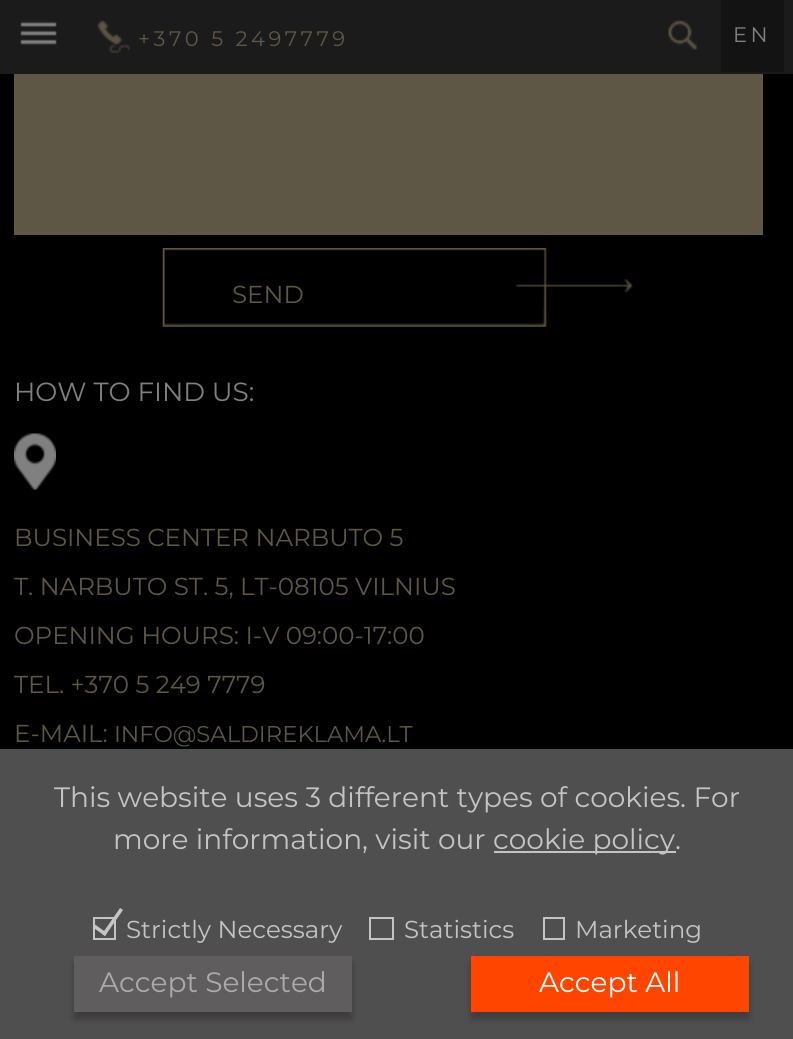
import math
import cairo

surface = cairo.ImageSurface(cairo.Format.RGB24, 793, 1039)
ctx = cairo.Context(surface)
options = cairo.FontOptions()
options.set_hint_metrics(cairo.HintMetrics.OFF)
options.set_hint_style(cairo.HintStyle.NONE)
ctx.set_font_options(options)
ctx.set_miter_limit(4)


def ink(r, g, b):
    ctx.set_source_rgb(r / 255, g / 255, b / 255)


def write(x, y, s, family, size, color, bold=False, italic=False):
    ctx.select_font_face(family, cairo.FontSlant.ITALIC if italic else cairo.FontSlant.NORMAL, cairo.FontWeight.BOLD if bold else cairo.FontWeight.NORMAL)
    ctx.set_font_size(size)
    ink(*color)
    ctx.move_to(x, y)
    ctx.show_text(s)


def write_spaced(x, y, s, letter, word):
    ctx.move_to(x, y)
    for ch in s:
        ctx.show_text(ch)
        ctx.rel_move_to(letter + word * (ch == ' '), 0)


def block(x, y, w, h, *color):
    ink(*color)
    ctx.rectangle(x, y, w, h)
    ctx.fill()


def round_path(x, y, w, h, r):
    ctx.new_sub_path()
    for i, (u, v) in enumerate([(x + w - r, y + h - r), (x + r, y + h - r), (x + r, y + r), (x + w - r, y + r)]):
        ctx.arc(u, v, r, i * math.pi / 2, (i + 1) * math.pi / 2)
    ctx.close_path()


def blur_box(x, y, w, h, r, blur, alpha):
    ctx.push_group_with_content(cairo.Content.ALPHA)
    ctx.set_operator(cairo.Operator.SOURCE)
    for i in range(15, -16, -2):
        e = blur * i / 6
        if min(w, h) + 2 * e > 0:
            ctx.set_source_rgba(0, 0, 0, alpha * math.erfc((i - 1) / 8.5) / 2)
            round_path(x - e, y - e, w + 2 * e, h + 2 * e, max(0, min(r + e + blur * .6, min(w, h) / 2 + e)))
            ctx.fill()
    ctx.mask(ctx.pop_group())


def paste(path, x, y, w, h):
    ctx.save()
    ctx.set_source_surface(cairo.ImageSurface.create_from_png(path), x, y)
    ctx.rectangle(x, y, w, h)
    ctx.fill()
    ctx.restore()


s1 = dict(family="Montserrat", size=24.5, color=(94, 87, 70))
s2 = dict(family="Montserrat", size=26.25, color=(128, 128, 128))
s3 = dict(family="Montserrat", size=22.75, color=(94, 87, 70))
s4 = dict(family="Montserrat", size=28, color=(196, 196, 196))
s5 = dict(family="Montserrat", size=24.5, color=(196, 196, 196))
s6 = dict(family="Montserrat", size=28, color=(171, 171, 171))
s7 = dict(family="Montserrat", size=28, color=(255, 255, 255))

ink(0, 0, 0)
ctx.paint()
block(0, 0, 793, 74, 27, 27, 27)
paste("pic1.png", 20, 21, 37, 24)
paste("pic2.png", 97, 20, 33, 34)
ctx.select_font_face("Montserrat")
ctx.set_font_size(21)
ink(94, 87, 70)
write_spaced(138, 46, "+370 5 2497779", 3.5, 0)
paste("pic3.png", 668, 20, 29, 30)
block(721, 0, 63, 72, 19, 19, 19)
ink(128, 128, 128)
write_spaced(733, 42, "EN", 3.5, 0)
block(14, 74, 749, 161, 94, 87, 70)
paste("pic4.png", 162, 248, 471, 79)
write(232, 303, "SEND", **s1)
write(14, 401, "HOW TO FIND US:", **s2)
paste("pic5.png", 14, 433, 42, 57)
write(14, 546, "BUSINESS CENTER NARBUTO 5", **s1)
write(14, 595, "T. NARBUTO ST. 5, LT-08105 VILNIUS", **s1)
write(14, 644, "OPENING HOURS: I-V 09:00-17:00", **s1)
write(14, 693, "TEL. +370 5 249 7779", **s1)
write(14, 742, "E-MAIL:", **s1)
write(114, 742, "INFO@SALDIREKLAMA.LT", **s3)
block(0, 749, 793, 290, 79, 79, 79)
write(54, 807, "This website uses 3 different types of cookies. For", **s4)
write(113, 849, "more information, visit our", **s4)
block(494, 851, 182, 2, 196, 196, 196)
write(493, 849, "cookie policy.", **s4)
ctx.rectangle(94, 918, 21, 21)
ctx.stroke()
ctx.new_path()
ctx.move_to(120, 908)
ctx.line_to(123, 910)
ctx.line_to(105, 936)
ctx.line_to(102, 934)
ctx.close_path()
ctx.fill()
ctx.new_path()
ctx.move_to(95, 924.5)
ctx.line_to(107, 933)
ctx.line_to(105, 936)
ctx.line_to(93, 927.5)
ctx.close_path()
ctx.fill()
write(126, 938, "Strictly Necessary", **s5)
ctx.rectangle(370, 918, 23, 21)
ctx.stroke()
write(404, 938, "Statistics", **s5)
ctx.rectangle(544, 918, 20, 21)
ctx.stroke()
write(575, 938, "Marketing", **s5)
ink(0, 0, 0)
blur_box(74, 963, 278, 56, 0, 3.5, 0.25)
block(74, 956, 278, 56, 95, 93, 93)
write(99, 992, "Accept Selected", **s6)
ink(0, 0, 0)
blur_box(471, 963, 278, 56, 0, 3.5, 0.25)
block(471, 956, 278, 56, 255, 69, 0)
write(539, 992, "Accept All", **s7)
surface.write_to_png("screenshot.png")
